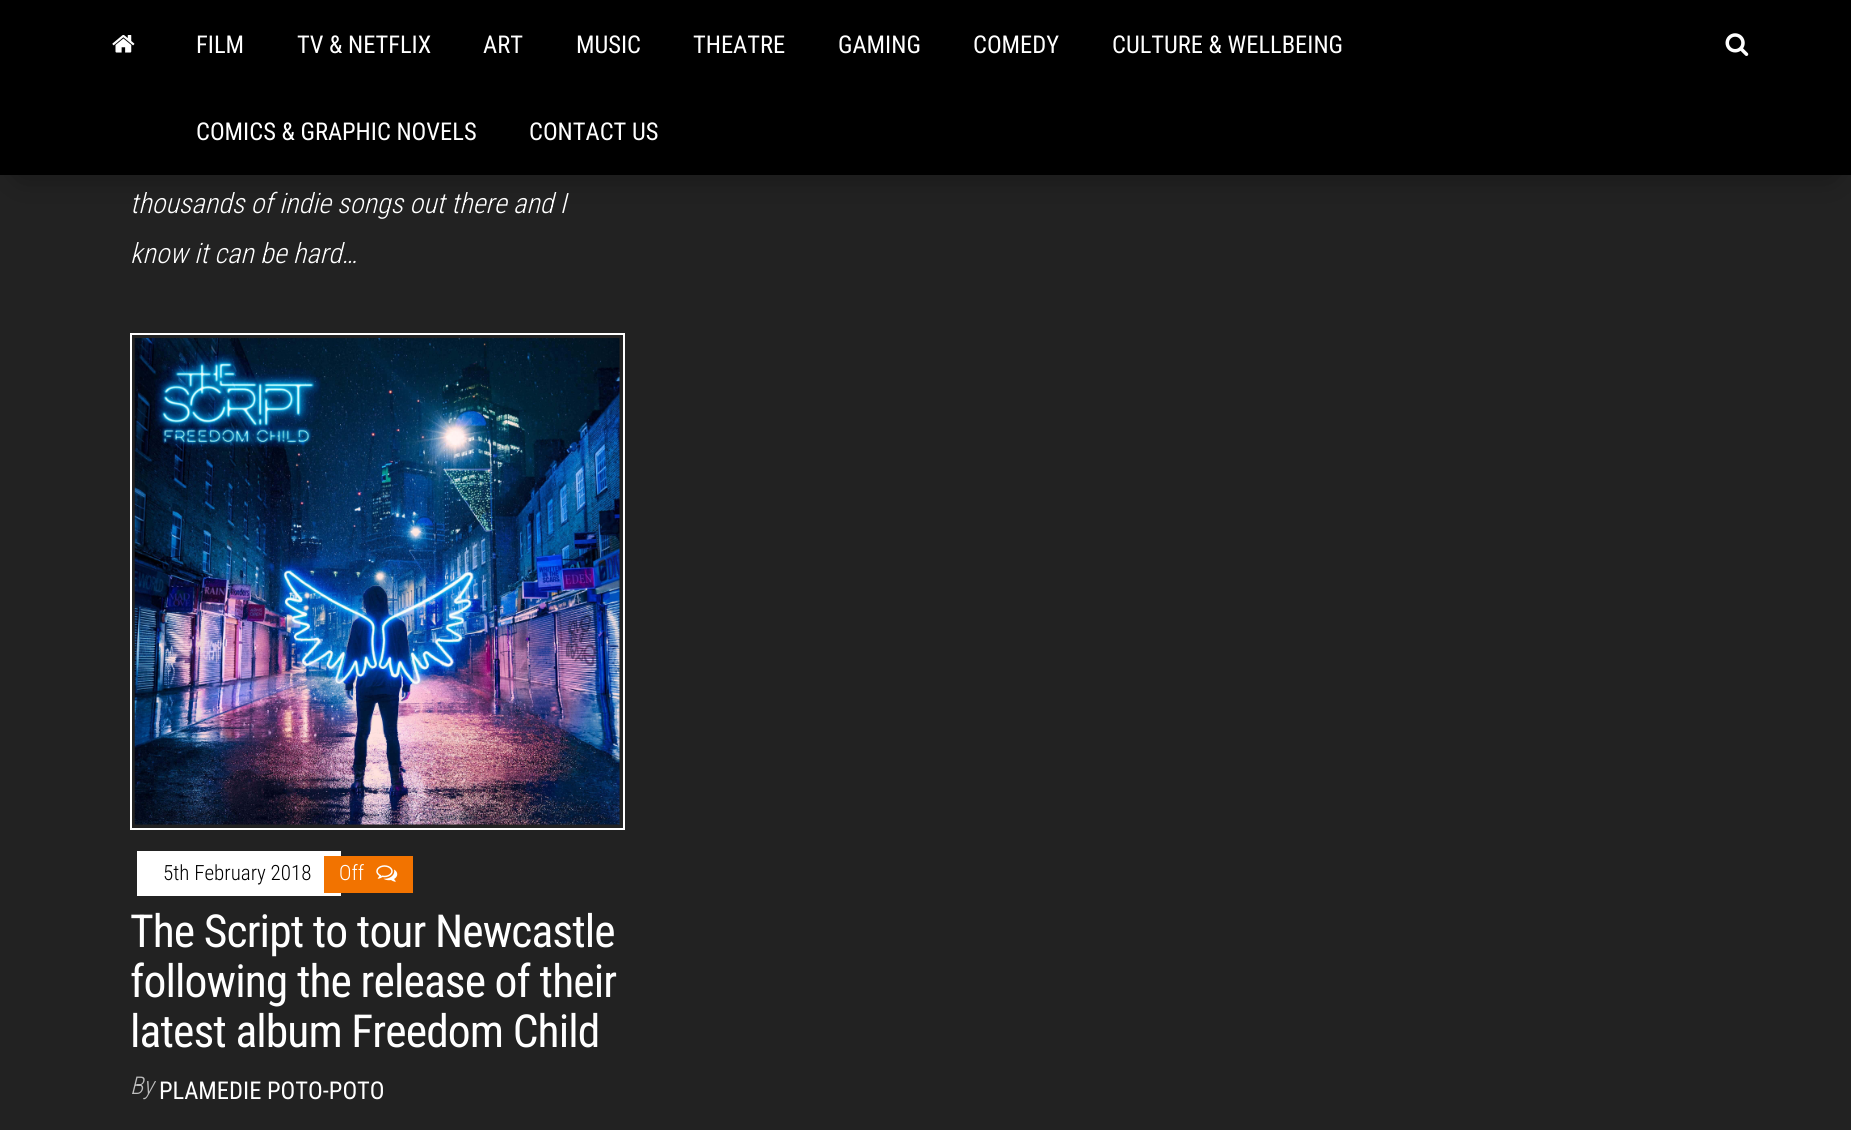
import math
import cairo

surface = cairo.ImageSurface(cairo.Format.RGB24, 1851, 1130)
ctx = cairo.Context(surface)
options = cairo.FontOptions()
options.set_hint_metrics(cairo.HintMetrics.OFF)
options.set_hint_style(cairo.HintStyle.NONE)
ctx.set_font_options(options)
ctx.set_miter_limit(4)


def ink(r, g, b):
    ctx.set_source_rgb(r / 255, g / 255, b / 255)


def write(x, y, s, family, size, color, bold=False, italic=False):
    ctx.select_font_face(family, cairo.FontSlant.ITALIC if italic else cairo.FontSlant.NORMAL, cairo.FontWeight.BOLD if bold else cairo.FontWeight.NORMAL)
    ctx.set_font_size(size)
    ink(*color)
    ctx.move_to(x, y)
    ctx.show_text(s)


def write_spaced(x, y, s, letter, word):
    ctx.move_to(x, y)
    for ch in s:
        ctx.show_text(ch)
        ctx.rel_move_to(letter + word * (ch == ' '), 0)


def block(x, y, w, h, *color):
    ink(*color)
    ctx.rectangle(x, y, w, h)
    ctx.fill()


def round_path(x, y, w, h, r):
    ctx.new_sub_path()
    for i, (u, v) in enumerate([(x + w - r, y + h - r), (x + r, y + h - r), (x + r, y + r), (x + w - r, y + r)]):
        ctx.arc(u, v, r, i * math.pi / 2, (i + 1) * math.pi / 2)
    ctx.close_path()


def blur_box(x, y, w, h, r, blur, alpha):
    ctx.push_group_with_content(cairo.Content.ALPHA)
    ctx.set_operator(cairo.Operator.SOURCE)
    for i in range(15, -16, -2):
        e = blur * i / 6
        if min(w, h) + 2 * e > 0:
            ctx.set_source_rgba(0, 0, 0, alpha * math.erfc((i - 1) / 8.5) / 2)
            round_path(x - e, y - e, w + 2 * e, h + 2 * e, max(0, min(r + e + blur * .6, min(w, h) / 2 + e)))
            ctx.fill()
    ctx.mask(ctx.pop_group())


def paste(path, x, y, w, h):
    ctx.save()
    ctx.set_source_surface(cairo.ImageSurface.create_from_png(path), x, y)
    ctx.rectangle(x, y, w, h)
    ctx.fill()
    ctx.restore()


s1 = dict(family="Roboto Condensed", size=24.5, color=(255, 255, 255))
s2 = dict(family="Roboto Condensed Light", size=28, color=(255, 255, 255), italic=True)
s3 = dict(family="Roboto Condensed Light", size=21, color=(0, 0, 0))
s4 = dict(family="Roboto Condensed Light", size=21, color=(255, 255, 255))
s5 = dict(family="Roboto Condensed Light", size=24.5, color=(189, 189, 189), italic=True)

ink(34, 34, 34)
ctx.paint()
ink(0, 0, 0)
blur_box(21, 39, 1810, 133, 0, 17.5, 0.42)
block(0, 0, 1851, 175, 0, 0, 0)
paste("pic1.png", 112, 35, 23, 18)
write(196, 53, "FILM", **s1)
write(297, 53, "TV & NETFLIX", **s1)
write(483, 53, "ART", **s1)
write(576, 53, "MUSIC", **s1)
write(693, 53, "THEATRE", **s1)
write(838, 53, "GAMING", **s1)
write(973, 53, "COMEDY", **s1)
write(1112, 53, "CULTURE & WELLBEING", **s1)
write(196, 140, "COMICS & GRAPHIC NOVELS", **s1)
write(529, 140, "CONTACT US", **s1)
paste("pic2.png", 1725, 33, 24, 23)
write(130, 213, "thousands of indie songs out there and I", **s2)
write(130, 263, "know it can be hard…", **s2)
ctx.rectangle(131, 334, 493, 495)
ctx.stroke()
paste("pic3.png", 134, 338, 486, 487)
block(137, 851, 204, 45, 255, 255, 255)
write(163, 880, "5th February 2018", **s3)
block(324, 856, 89, 37, 242, 115, 0)
write(339, 880, "Off", **s4)
paste("pic4.png", 376, 865, 22, 17)
ctx.select_font_face("Roboto Condensed")
ctx.set_font_size(45.5)
write_spaced(130, 947, "The Script to tour Newcastle", -0.9, 0)
write_spaced(130, 997, "following the release of their", -0.9, 0)
write_spaced(130, 1047, "latest album Freedom Child", -0.9, 0)
write(130, 1094, "By", **s5)
write(159, 1099, "PLAMEDIE POTO-POTO", **s1)
surface.write_to_png("screenshot.png")
